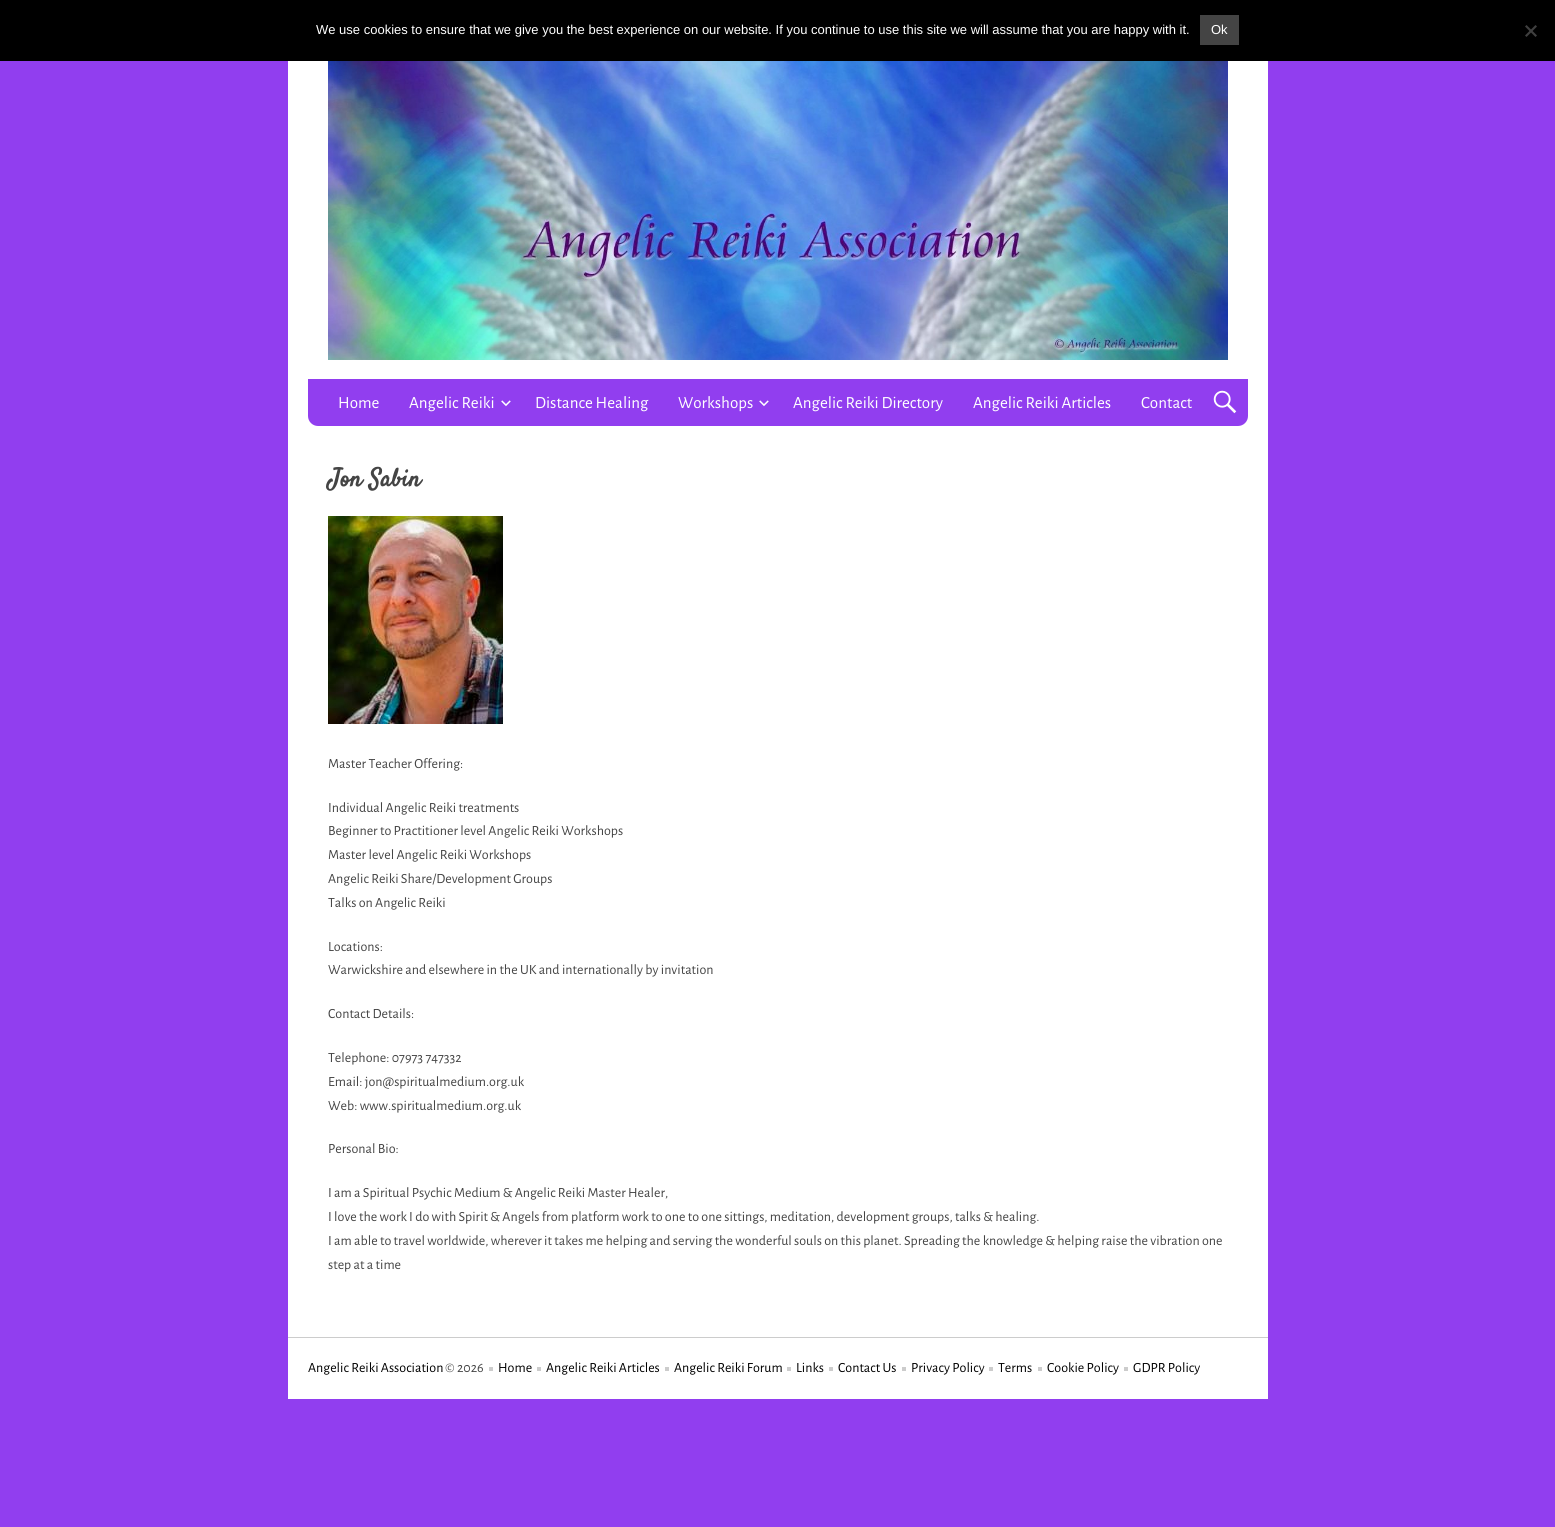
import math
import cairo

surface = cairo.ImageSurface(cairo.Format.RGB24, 1555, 1527)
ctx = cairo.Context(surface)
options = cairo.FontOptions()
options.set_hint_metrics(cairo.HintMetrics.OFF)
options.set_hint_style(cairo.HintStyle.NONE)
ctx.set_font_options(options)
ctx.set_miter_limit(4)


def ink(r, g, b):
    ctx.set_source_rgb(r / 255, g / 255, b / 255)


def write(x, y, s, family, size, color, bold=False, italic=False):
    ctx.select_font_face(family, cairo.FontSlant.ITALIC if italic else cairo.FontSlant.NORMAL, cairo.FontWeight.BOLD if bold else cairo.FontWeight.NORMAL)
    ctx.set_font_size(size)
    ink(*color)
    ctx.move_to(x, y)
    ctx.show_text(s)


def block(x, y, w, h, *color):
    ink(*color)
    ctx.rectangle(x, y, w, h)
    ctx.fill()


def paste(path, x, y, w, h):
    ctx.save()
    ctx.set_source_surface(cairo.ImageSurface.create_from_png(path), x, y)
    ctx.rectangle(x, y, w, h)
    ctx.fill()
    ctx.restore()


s1 = dict(family="Liberation Sans", size=13, color=(255, 255, 255))
s2 = dict(family="Alegreya Sans", size=17, color=(255, 255, 255))
s3 = dict(family="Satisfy", size=25, color=(68, 68, 68), bold=True)
s4 = dict(family="Alegreya Sans", size=14, color=(68, 68, 68))
s5 = dict(family="Alegreya Sans", size=14, color=(0, 0, 0))

ink(145, 62, 239)
ctx.paint()
block(0, 0, 1555, 61, 0, 0, 0)
write(316, 34, "We use cookies to ensure that we give you the best experience on our website. If you continue to use this site we will assume that you are happy with it.", **s1)
block(1200, 15, 39, 30, 68, 68, 68)
write(1211, 34, "Ok", **s1)
ink(64, 64, 64)
ctx.new_path()
ctx.move_to(1535.5, 25)
ctx.line_to(1537, 26.5)
ctx.line_to(1526.5, 37)
ctx.line_to(1525, 35.5)
ctx.close_path()
ctx.fill()
ctx.new_path()
ctx.move_to(1525, 26.5)
ctx.line_to(1526.5, 25)
ctx.line_to(1537, 35.5)
ctx.line_to(1535.5, 37)
ctx.close_path()
ctx.fill()
block(288, 61, 980, 1338, 255, 255, 255)
paste("pic1.png", 328, 61, 900, 299)
ink(145, 62, 239)
ctx.new_path()
ctx.move_to(308, 379)
ctx.line_to(1248, 379)
ctx.line_to(1248, 416)
ctx.curve_to(1248, 421.5, 1243.5, 426, 1238, 426)
ctx.line_to(318, 426)
ctx.curve_to(312.5, 426, 308, 421.5, 308, 416)
ctx.close_path()
ctx.fill()
write(338, 408, "Home", **s2)
write(409, 408, "Angelic Reiki", **s2)
paste("pic2.png", 501, 400, 10, 7)
write(535, 408, "Distance Healing", **s2)
write(678, 408, "Workshops", **s2)
paste("pic2.png", 759, 400, 10, 7)
write(793, 408, "Angelic Reiki Directory", **s2)
write(973, 408, "Angelic Reiki Articles", **s2)
write(1141, 408, "Contact", **s2)
paste("pic3.png", 1213, 390, 24, 24)
write(328, 486, "Jon Sabin", **s3)
paste("pic4.png", 328, 516, 175, 208)
write(328, 768, "Master Teacher Offering:", **s4)
write(328, 812, "Individual Angelic Reiki treatments", **s4)
write(328, 835, "Beginner to Practitioner level Angelic Reiki Workshops", **s4)
write(328, 859, "Master level Angelic Reiki Workshops", **s4)
write(328, 883, "Angelic Reiki Share/Development Groups", **s4)
write(328, 907, "Talks on Angelic Reiki", **s4)
write(328, 951, "Locations:", **s4)
write(328, 974, "Warwickshire and elsewhere in the UK and internationally by invitation", **s4)
write(328, 1018, "Contact Details:", **s4)
write(328, 1062, "Telephone: 07973 747332", **s4)
write(328, 1086, "Email: jon@spiritualmedium.org.uk", **s4)
write(328, 1110, "Web: www.spiritualmedium.org.uk", **s4)
write(328, 1153, "Personal Bio:", **s4)
write(328, 1197, "I am a Spiritual Psychic Medium & Angelic Reiki Master Healer,", **s4)
write(328, 1221, "I love the work I do with Spirit & Angels from platform work to one to one sittings, meditation, development groups, talks & healing.", **s4)
write(328, 1245, "I am able to travel worldwide, wherever it takes me helping and serving the wonderful souls on this planet. Spreading the knowledge & helping raise the vibration one", **s4)
write(328, 1269, "step at a time", **s4)
block(288, 1337, 980, 1, 204, 204, 204)
write(308, 1372, "Angelic Reiki Association", **s5)
write(445, 1372, "© 2026", **s4)
block(489, 1367, 4, 4, 204, 204, 204)
write(498, 1372, "Home", **s5)
block(537, 1367, 4, 4, 204, 204, 204)
write(546, 1372, "Angelic Reiki Articles", **s5)
block(665, 1367, 4, 4, 204, 204, 204)
write(674, 1372, "Angelic Reiki Forum", **s5)
block(787, 1367, 4, 4, 204, 204, 204)
write(796, 1372, "Links", **s5)
block(829, 1367, 4, 4, 204, 204, 204)
write(838, 1372, "Contact Us", **s5)
block(902, 1367, 4, 4, 204, 204, 204)
write(911, 1372, "Privacy Policy", **s5)
block(984, 1365, 1, 1, 255, 255, 255)
block(989, 1367, 4, 4, 204, 204, 204)
write(998, 1372, "Terms", **s5)
block(1038, 1367, 4, 4, 204, 204, 204)
write(1047, 1372, "Cookie Policy", **s5)
block(1124, 1367, 4, 4, 204, 204, 204)
write(1133, 1372, "GDPR Policy", **s5)
surface.write_to_png("screenshot.png")
